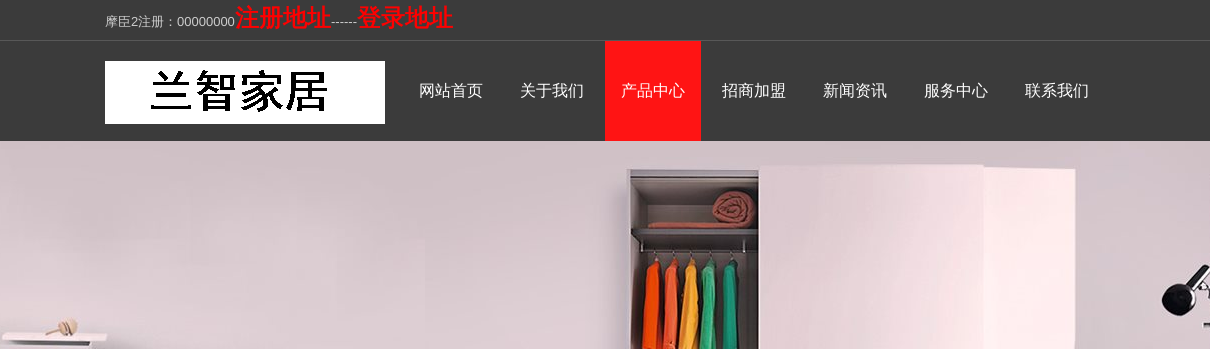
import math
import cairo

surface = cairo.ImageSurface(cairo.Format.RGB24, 1210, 349)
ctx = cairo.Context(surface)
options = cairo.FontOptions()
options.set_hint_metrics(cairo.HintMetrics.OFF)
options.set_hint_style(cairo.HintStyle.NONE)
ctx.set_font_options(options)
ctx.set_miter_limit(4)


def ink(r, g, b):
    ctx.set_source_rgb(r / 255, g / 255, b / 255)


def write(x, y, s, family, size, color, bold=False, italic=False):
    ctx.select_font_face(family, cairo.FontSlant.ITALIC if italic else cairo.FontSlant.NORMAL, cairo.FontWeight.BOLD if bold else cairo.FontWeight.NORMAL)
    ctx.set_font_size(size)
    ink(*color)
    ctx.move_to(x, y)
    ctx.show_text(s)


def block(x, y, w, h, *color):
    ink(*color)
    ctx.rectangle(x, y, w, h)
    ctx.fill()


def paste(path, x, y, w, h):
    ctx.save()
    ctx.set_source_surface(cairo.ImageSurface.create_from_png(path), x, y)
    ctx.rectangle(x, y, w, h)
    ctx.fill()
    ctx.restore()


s1 = dict(family="WenQuanYi Zen Hei Medium", size=13, color=(204, 204, 204))
s2 = dict(family="Liberation Sans", size=13, color=(204, 204, 204))
s3 = dict(family="WenQuanYi Zen Hei", size=24, color=(255, 0, 0), bold=True)
s4 = dict(family="WenQuanYi Zen Hei Medium", size=16, color=(255, 255, 255))

ink(255, 255, 255)
ctx.paint()
block(0, 0, 1210, 141, 59, 59, 59)
block(0, 40, 1210, 1, 88, 88, 88)
write(105, 26, "摩臣", **s1)
write(131, 26, "2", **s2)
write(138, 26, "注册：", **s1)
write(177, 26, "00000000", **s2)
write(235, 26, "注册地址", **s3)
write(331, 26, "------", **s2)
write(357, 26, "登录地址", **s3)
paste("pic1.png", 105, 61, 280, 63)
write(419, 96, "网站首页", **s4)
write(520, 96, "关于我们", **s4)
block(605, 41, 96, 100, 255, 20, 20)
write(621, 96, "产品中心", **s4)
write(722, 96, "招商加盟", **s4)
write(823, 96, "新闻资讯", **s4)
write(924, 96, "服务中心", **s4)
write(1025, 96, "联系我们", **s4)
paste("pic2.png", 0, 141, 1210, 208)
surface.write_to_png("screenshot.png")
